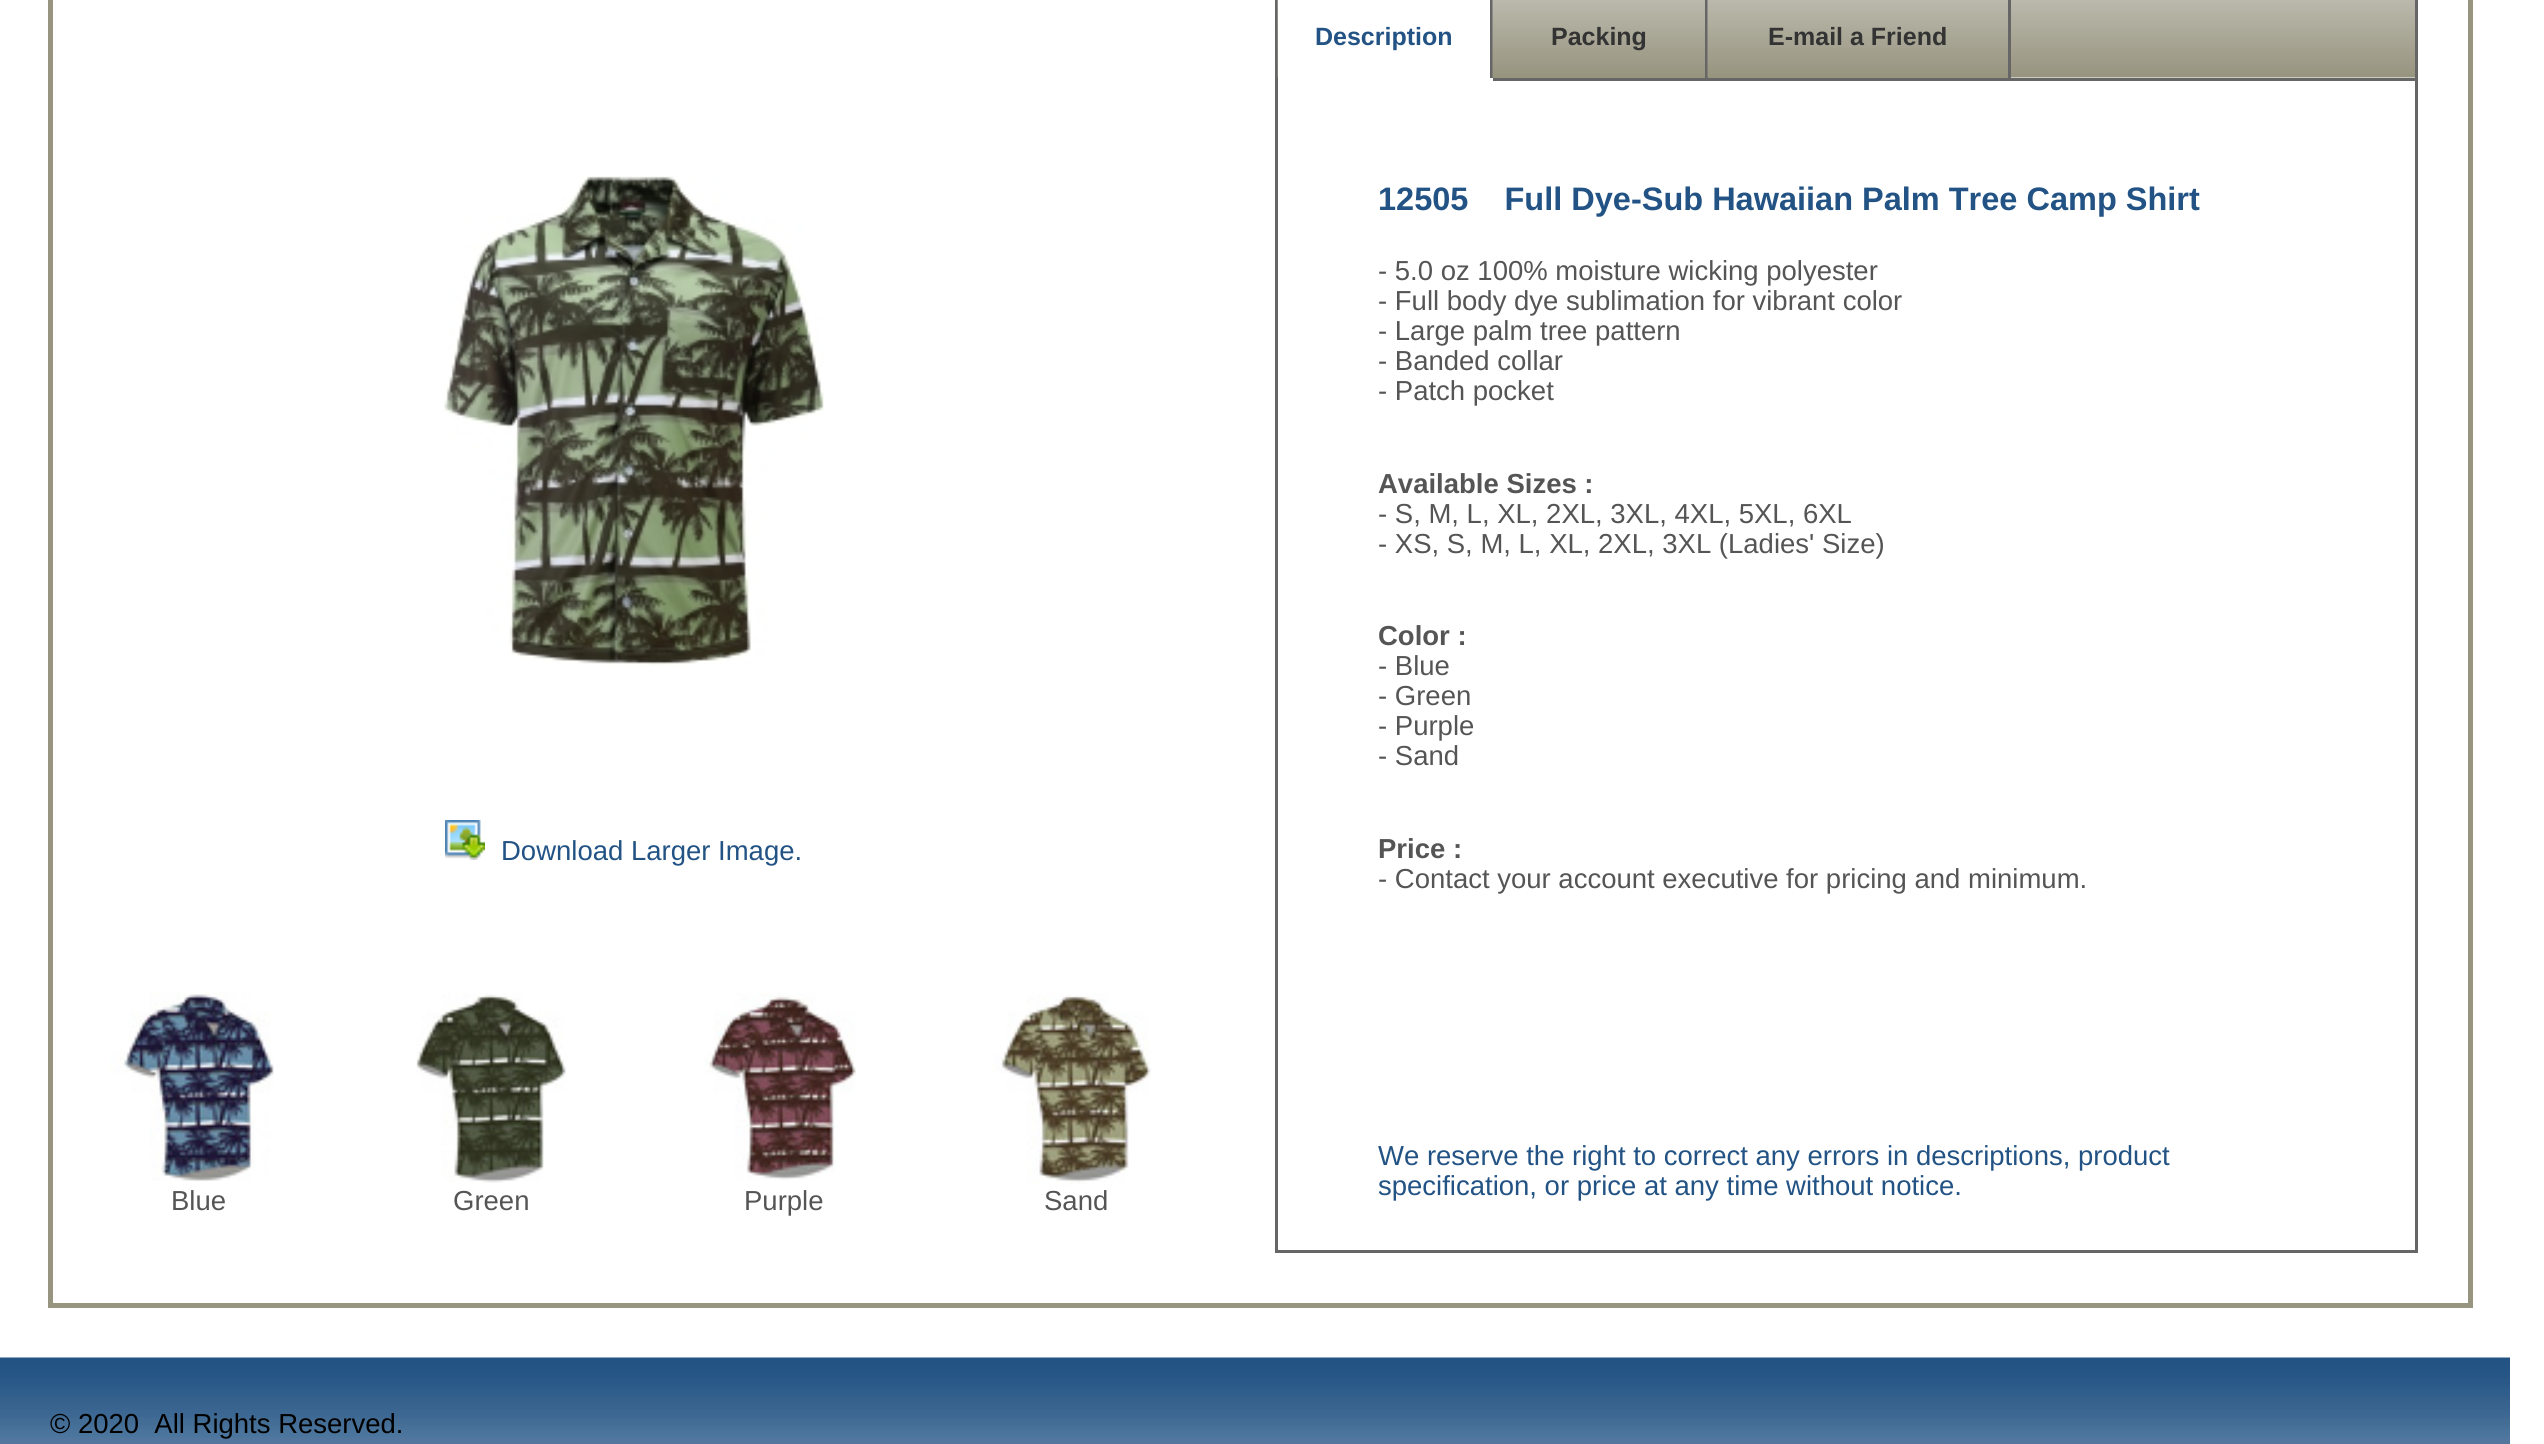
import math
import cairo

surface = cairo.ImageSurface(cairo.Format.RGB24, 2544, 1444)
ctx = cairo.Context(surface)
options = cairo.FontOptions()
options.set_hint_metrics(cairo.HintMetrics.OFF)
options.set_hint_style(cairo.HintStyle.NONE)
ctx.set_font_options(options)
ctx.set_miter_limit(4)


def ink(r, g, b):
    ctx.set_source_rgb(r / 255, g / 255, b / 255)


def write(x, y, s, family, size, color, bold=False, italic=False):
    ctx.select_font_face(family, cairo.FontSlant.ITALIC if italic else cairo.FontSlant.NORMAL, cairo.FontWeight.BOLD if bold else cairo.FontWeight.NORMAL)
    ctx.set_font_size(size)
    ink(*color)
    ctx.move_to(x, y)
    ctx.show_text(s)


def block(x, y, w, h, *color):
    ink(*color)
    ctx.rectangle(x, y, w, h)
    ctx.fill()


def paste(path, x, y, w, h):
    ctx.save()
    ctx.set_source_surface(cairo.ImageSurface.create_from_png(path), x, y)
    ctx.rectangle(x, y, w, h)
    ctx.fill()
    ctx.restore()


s1 = dict(family="Liberation Sans", size=27.5, color=(34, 83, 132))
s2 = dict(family="Liberation Sans", size=27.5, color=(85, 85, 85))
s3 = dict(family="Liberation Sans", size=25, color=(34, 83, 132), bold=True)
s4 = dict(family="Liberation Sans", size=25, color=(51, 51, 51), bold=True)
s5 = dict(family="Liberation Sans", size=32.5, color=(34, 83, 132), bold=True)
s6 = dict(family="Liberation Sans", size=27.5, color=(85, 85, 85), bold=True)
s7 = dict(family="Liberation Sans", size=27.5, color=(0, 0, 0))

ink(255, 255, 255)
ctx.paint()
ctx.rectangle(50.5, -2.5, 2420, 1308)
ink(151, 148, 127)
ctx.set_line_width(5)
ctx.stroke()
paste("pic1.png", 444, 176, 380, 490)
paste("pic2.png", 445, 820, 40, 40)
write(501, 860, "Download Larger Image.", **s1)
paste("pic3.png", 110, 992, 164, 189)
write(171, 1210, "Blue", **s2)
paste("pic4.png", 416, 993, 150, 190)
write(453, 1210, "Green", **s2)
paste("pic5.png", 705, 993, 151, 187)
write(744, 1210, "Purple", **s2)
paste("pic6.png", 993, 993, 158, 192)
write(1044, 1210, "Sand", **s2)
ctx.rectangle(1276.5, -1.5, 1140, 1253)
ink(102, 102, 102)
ctx.set_line_width(3)
ctx.stroke()
paste("pic7.png", 1277, 0, 1138, 78)
block(2010, 78, 405, 3, 102, 102, 102)
block(1278, 0, 212, 78, 255, 255, 255)
block(1490, 0, 3, 80, 102, 102, 102)
block(1490, 78, 3, 2, 255, 255, 255)
write(1315, 45, "Description", **s3)
block(1493, 77, 212, 1, 151, 148, 127)
paste("pic8.png", 1492, 0, 213, 78)
block(1705, 0, 3, 80, 102, 102, 102)
block(1493, 78, 215, 3, 102, 102, 102)
write(1551, 45, "Packing", **s4)
block(1708, 77, 300, 1, 151, 148, 127)
paste("pic9.png", 1707, 0, 301, 78)
block(2008, 0, 3, 80, 102, 102, 102)
block(1708, 78, 302, 3, 102, 102, 102)
write(1768, 45, "E-mail a Friend", **s4)
write(1378, 210, "12505    Full Dye-Sub Hawaiian Palm Tree Camp Shirt", **s5)
write(1378, 280, "- 5.0 oz 100% moisture wicking polyester", **s2)
write(1378, 310, "- Full body dye sublimation for vibrant color", **s2)
write(1378, 340, "- Large palm tree pattern", **s2)
write(1378, 370, "- Banded collar", **s2)
write(1378, 400, "- Patch pocket", **s2)
write(1378, 493, "Available Sizes :", **s6)
write(1378, 523, "- S, M, L, XL, 2XL, 3XL, 4XL, 5XL, 6XL", **s2)
write(1378, 553, "- XS, S, M, L, XL, 2XL, 3XL (Ladies' Size)", **s2)
write(1378, 645, "Color :", **s6)
write(1378, 675, "- Blue", **s2)
write(1378, 705, "- Green", **s2)
write(1378, 735, "- Purple", **s2)
write(1378, 765, "- Sand", **s2)
write(1378, 858, "Price :", **s6)
write(1378, 888, "- Contact your account executive for pricing and minimum.", **s2)
write(1378, 1165, "We reserve the right to correct any errors in descriptions, product", **s1)
write(1378, 1195, "specification, or price at any time without notice.", **s1)
paste("pic10.png", 0, 1357, 2510, 87)
write(50, 1433, "© 2020  All Rights Reserved.", **s7)
surface.write_to_png("screenshot.png")
